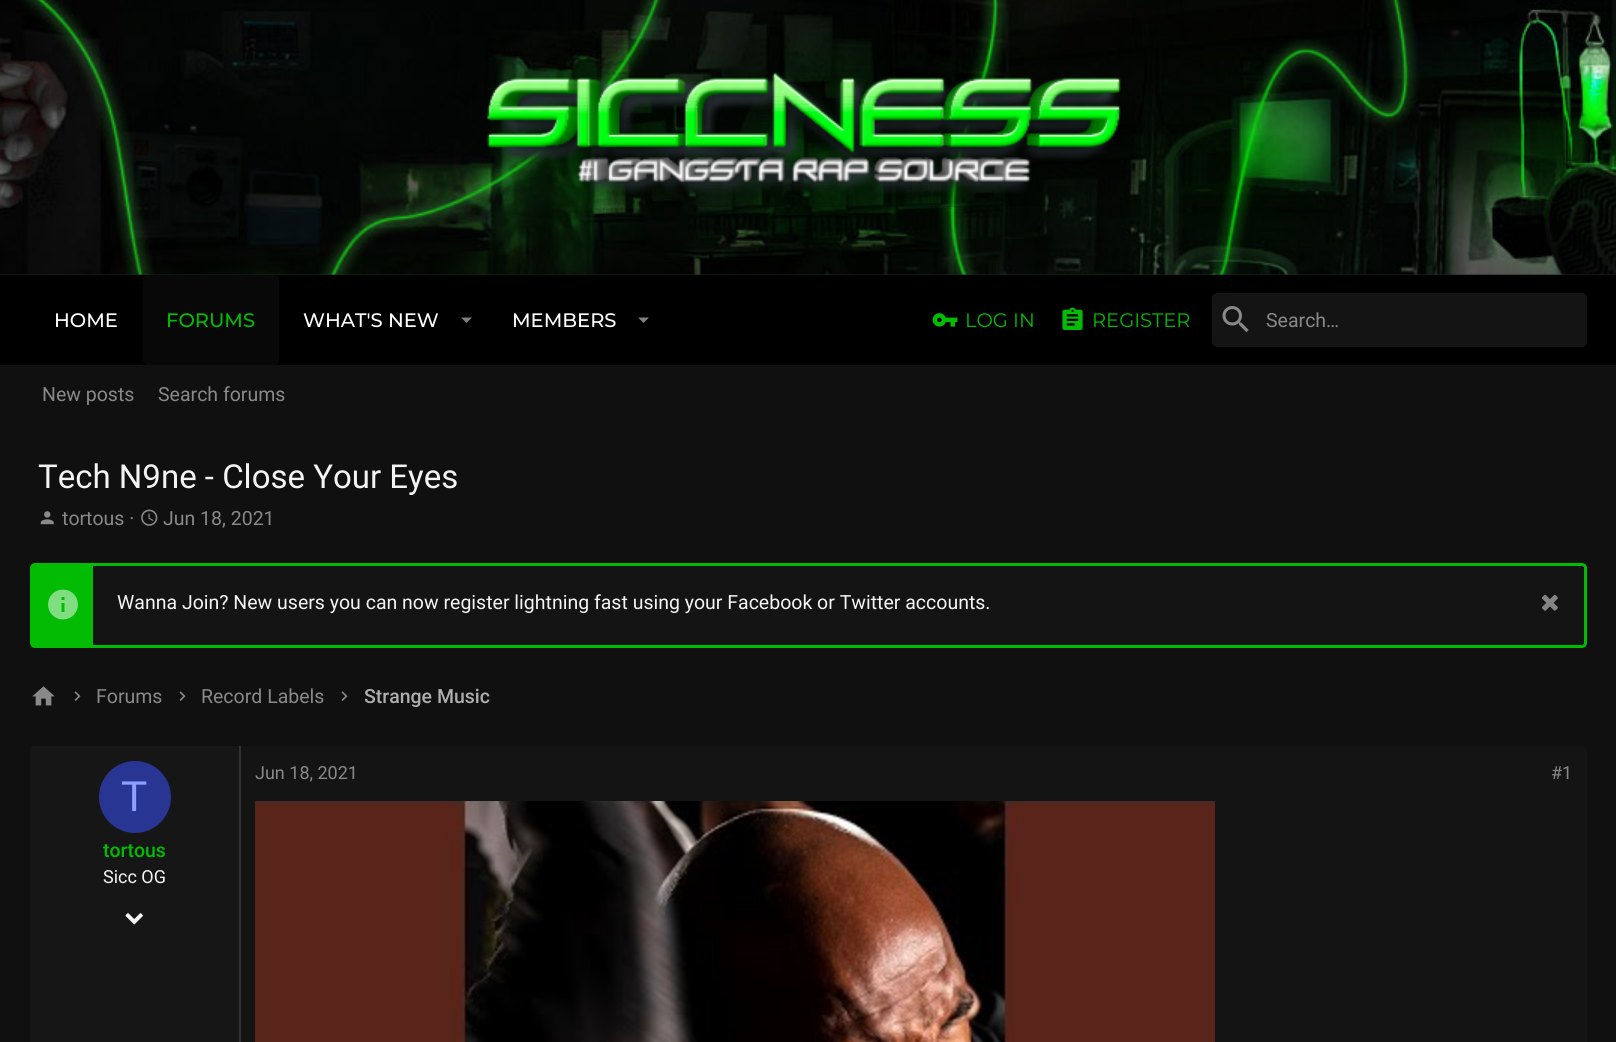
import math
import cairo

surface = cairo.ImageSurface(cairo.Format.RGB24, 1616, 1042)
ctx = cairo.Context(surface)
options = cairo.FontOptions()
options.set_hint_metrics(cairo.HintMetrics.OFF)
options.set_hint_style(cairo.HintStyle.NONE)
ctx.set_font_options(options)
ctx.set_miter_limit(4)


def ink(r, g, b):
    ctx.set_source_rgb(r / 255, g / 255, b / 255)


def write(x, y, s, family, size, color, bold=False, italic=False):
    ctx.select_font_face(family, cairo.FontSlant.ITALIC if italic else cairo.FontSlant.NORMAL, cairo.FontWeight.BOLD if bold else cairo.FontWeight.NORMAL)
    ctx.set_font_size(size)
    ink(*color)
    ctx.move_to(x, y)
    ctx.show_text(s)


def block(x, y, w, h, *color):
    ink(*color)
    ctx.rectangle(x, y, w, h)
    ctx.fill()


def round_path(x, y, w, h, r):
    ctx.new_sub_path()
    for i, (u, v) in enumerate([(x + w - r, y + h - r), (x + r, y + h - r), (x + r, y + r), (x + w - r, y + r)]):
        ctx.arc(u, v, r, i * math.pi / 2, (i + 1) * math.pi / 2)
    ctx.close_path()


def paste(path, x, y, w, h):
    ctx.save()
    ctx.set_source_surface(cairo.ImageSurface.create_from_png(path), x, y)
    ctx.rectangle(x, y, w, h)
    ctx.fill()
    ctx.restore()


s1 = dict(family="Montserrat Medium", size=19.5, color=(255, 255, 255))
s2 = dict(family="Montserrat Medium", size=19.5, color=(1, 188, 2))
s3 = dict(family="Montserrat", size=19.5, color=(1, 188, 2))
s4 = dict(family="Roboto", size=19.5, color=(137, 137, 137))
s5 = dict(family="Roboto", size=33, color=(244, 244, 244))
s6 = dict(family="Roboto", size=19.5, color=(244, 244, 244))
s7 = dict(family="Roboto Medium", size=19.5, color=(175, 175, 175))
s8 = dict(family="Roboto", size=18, color=(137, 137, 137))
s9 = dict(family="Liberation Sans", size=43, color=(140, 158, 255))
s10 = dict(family="Roboto Medium", size=19.5, color=(1, 188, 2))
s11 = dict(family="Roboto", size=18, color=(244, 244, 244))

ink(16, 16, 16)
ctx.paint()
block(0, 274, 1616, 1, 33, 36, 40)
paste("pic1.png", 0, 0, 1616, 275)
paste("pic2.png", 486, 70, 657, 137)
block(0, 275, 1616, 90, 0, 0, 0)
write(54, 327, "HOME", **s1)
ink(8, 8, 8)
round_path(143, 275, 136, 90, 5)
ctx.fill()
write(166, 327, "FORUMS", **s2)
write(303, 327, "WHAT'S NEW", **s1)
ink(128, 128, 128)
ctx.new_path()
ctx.move_to(461, 317.5)
ctx.line_to(466.5, 323)
ctx.line_to(472, 317.5)
ctx.close_path()
ctx.fill()
write(512, 327, "MEMBERS", **s1)
ink(128, 128, 128)
ctx.new_path()
ctx.move_to(638, 317.5)
ctx.line_to(643.5, 323)
ctx.line_to(649, 317.5)
ctx.close_path()
ctx.fill()
paste("pic3.png", 932, 313, 26, 14)
write(965, 327, "LOG IN", **s3)
paste("pic4.png", 1062, 307, 21, 23)
write(1092, 327, "REGISTER", **s3)
ink(20, 20, 20)
round_path(1212, 293, 375, 54, 5)
ctx.fill()
paste("pic5.png", 1222, 306, 27, 27)
write(1266, 327, "Search…", **s4)
write(42, 401, "New posts", **s4)
write(158, 401, "Search forums", **s4)
write(38, 488, "Tech N9ne - Close Your Eyes", **s5)
paste("pic6.png", 40, 511, 14, 14)
write(62, 525, "tortous ·", **s4)
paste("pic7.png", 141, 509, 17, 17)
write(163, 525, "Jun 18, 2021", **s4)
ink(20, 20, 20)
round_path(31.5, 564.5, 1554, 82, 3.5)
ctx.fill_preserve()
ink(1, 188, 2)
ctx.set_line_width(3)
ctx.stroke()
block(33, 566, 60, 79, 1, 188, 2)
paste("pic8.png", 48, 589, 30, 31)
write(117, 609, "Wanna Join? New users you can now register lightning fast using your Facebook or Twitter accounts.", **s6)
paste("pic9.png", 1542, 594, 16, 17)
paste("pic10.png", 32, 686, 23, 20)
paste("pic11.png", 74, 691, 7, 10)
write(96, 703, "Forums", **s4)
paste("pic11.png", 179, 691, 7, 10)
write(201, 703, "Record Labels", **s4)
paste("pic11.png", 341, 691, 7, 10)
ctx.save()
ctx.rectangle(365, 684, 126, 27)
ctx.clip()
write(364, 703, "Strange Music", **s7)
ctx.restore()
ink(20, 20, 20)
round_path(30, 746, 1557, 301, 5)
ctx.fill()
write(255, 779, "Jun 18, 2021", **s8)
write(1551, 779, "#1", **s8)
paste("pic12.png", 255, 801, 960, 241)
ink(22, 22, 22)
ctx.new_path()
ctx.move_to(33, 746)
ctx.line_to(240, 746)
ctx.line_to(240, 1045)
ctx.line_to(33, 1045)
ctx.curve_to(31.5, 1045, 30, 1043.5, 30, 1042)
ctx.line_to(30, 749)
ctx.curve_to(30, 747.5, 31.5, 746, 33, 746)
ctx.close_path()
ctx.fill()
block(239, 746, 2, 296, 49, 49, 49)
ink(40, 53, 147)
ctx.arc(135, 797, 36, 0, 2 * math.pi)
ctx.fill()
write(121, 811, "T", **s9)
write(103, 857, "tortous", **s10)
write(103, 883, "Sicc OG", **s11)
paste("pic13.png", 125, 913, 18, 12)
surface.write_to_png("screenshot.png")
